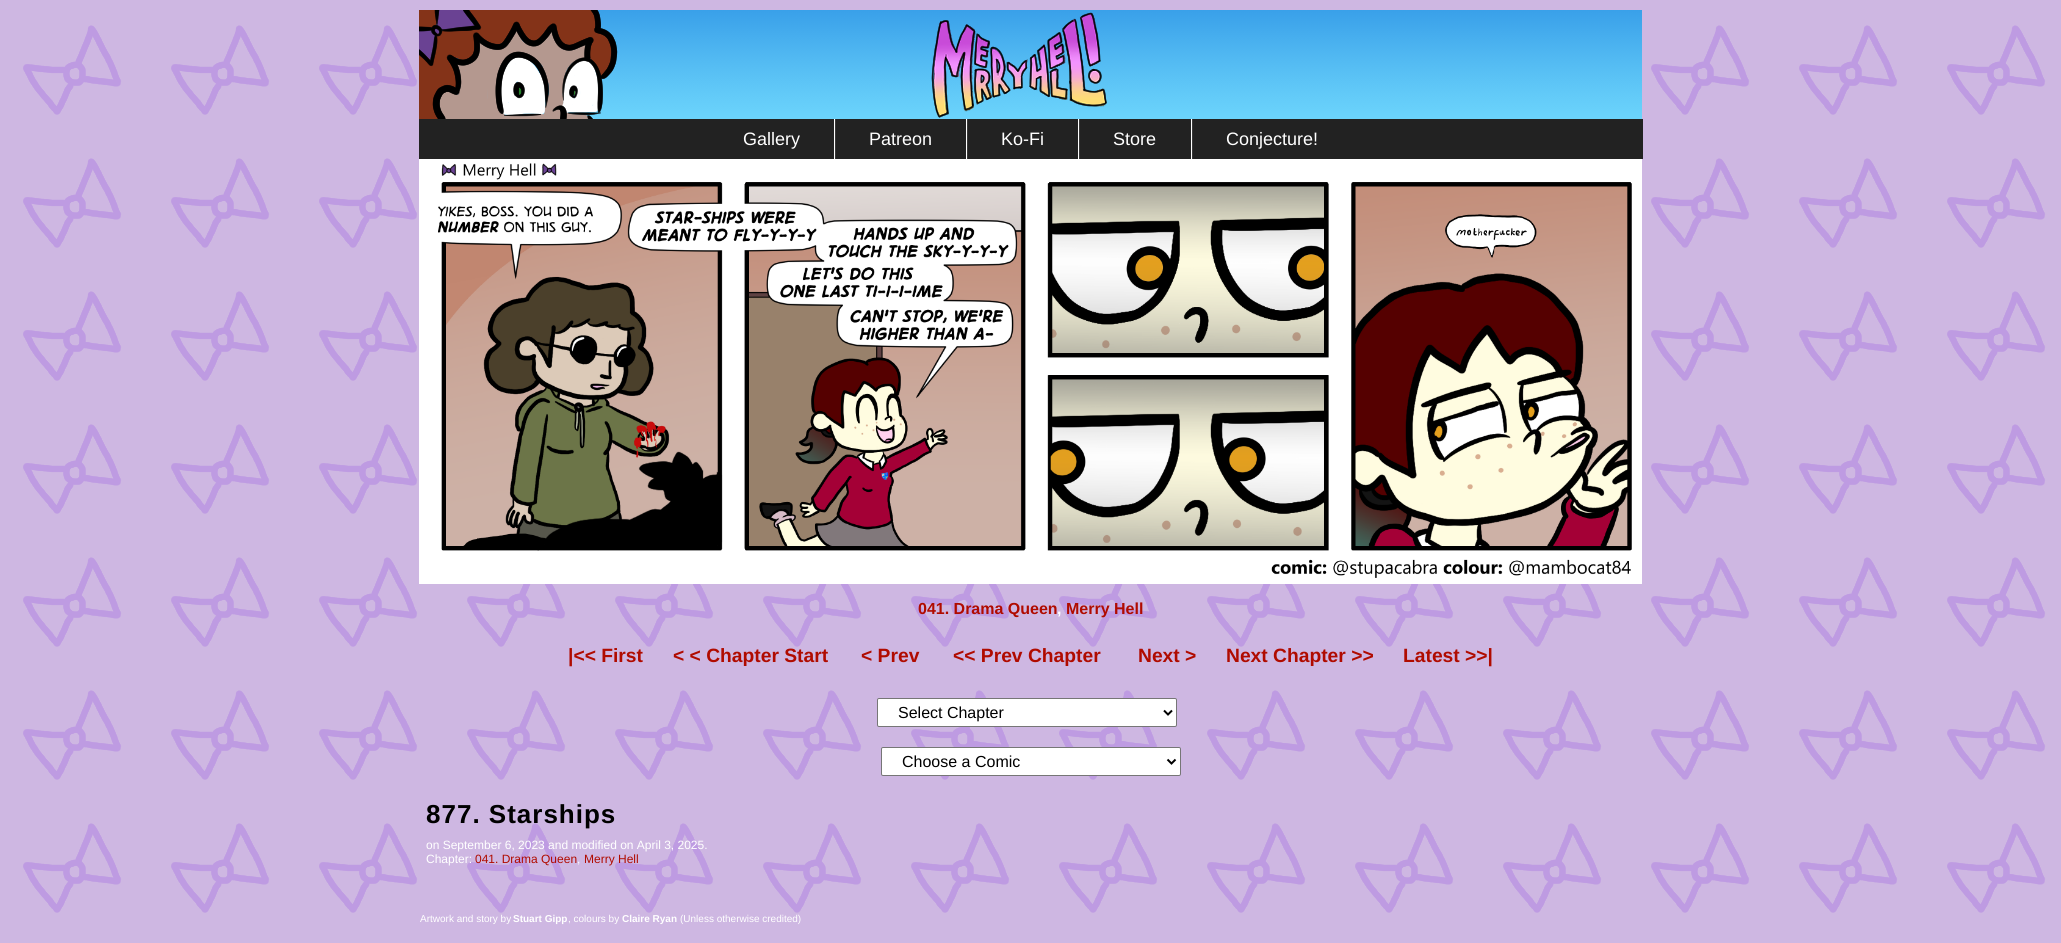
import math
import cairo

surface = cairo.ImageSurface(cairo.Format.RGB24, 2061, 943)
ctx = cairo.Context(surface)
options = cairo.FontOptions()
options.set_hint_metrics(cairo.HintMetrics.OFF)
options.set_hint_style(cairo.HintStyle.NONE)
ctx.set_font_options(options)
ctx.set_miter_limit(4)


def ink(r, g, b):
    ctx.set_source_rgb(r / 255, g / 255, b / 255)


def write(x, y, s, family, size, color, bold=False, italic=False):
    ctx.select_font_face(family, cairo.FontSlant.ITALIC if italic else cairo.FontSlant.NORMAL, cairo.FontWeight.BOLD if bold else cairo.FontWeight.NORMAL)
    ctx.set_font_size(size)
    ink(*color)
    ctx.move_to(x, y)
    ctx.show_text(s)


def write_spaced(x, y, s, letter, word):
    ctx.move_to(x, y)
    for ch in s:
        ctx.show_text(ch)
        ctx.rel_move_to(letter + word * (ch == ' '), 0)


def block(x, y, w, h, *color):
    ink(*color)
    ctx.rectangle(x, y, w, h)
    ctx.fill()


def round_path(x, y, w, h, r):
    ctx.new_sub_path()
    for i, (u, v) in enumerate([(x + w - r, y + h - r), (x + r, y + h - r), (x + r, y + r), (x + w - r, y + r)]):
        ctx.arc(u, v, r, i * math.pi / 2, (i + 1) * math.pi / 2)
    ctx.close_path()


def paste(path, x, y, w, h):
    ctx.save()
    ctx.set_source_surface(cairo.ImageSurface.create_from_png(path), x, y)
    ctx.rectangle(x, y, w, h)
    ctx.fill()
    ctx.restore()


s1 = dict(family="Liberation Sans", size=18, color=(255, 255, 255))
s2 = dict(family="Liberation Sans", size=16, color=(176, 11, 0), bold=True)
s3 = dict(family="Liberation Sans", size=16, color=(255, 255, 255), bold=True)
s4 = dict(family="Liberation Sans", size=19.25, color=(176, 11, 0), bold=True)
s5 = dict(family="Liberation Sans", size=16, color=(0, 0, 0))
s6 = dict(family="Liberation Sans", size=12, color=(255, 255, 255))
s7 = dict(family="Liberation Sans", size=12, color=(176, 11, 0))
s8 = dict(family="Liberation Sans", size=10, color=(255, 255, 255))
s9 = dict(family="Liberation Sans", size=10, color=(255, 255, 255), bold=True)

ink(255, 255, 255)
ctx.paint()
paste("pic1.png", 0, 0, 2061, 943)
paste("pic2.png", 419, 10, 1223, 109)
block(419, 119, 1224, 40, 34, 34, 34)
write(743, 145, "Gallery", **s1)
block(835, 119, 1, 40, 56, 56, 56)
block(834, 119, 1, 40, 255, 255, 255)
write(869, 145, "Patreon", **s1)
block(967, 119, 1, 40, 56, 56, 56)
block(966, 119, 1, 40, 255, 255, 255)
write(1001, 145, "Ko-Fi", **s1)
block(1079, 119, 1, 40, 56, 56, 56)
block(1078, 119, 1, 40, 255, 255, 255)
write(1113, 145, "Store", **s1)
block(1192, 119, 1, 40, 56, 56, 56)
block(1191, 119, 1, 40, 255, 255, 255)
write(1226, 145, "Conjecture!", **s1)
paste("pic3.png", 419, 159, 1223, 425)
write(918, 614, "041. Drama Queen", **s2)
write(1057, 614, ",", **s3)
write(1066, 614, "Merry Hell", **s2)
write(568, 662, "|<< First", **s4)
write(673, 662, "< < Chapter Start", **s4)
write(861, 662, "< Prev", **s4)
write(953, 662, "<< Prev Chapter", **s4)
write(1138, 662, "Next >", **s4)
write(1226, 662, "Next Chapter >>", **s4)
write(1403, 662, "Latest >>|", **s4)
ink(255, 255, 255)
round_path(877.5, 698.5, 299, 28, 1.5)
ctx.fill_preserve()
ink(118, 118, 118)
ctx.set_line_width(1)
ctx.stroke()
ctx.new_path()
ctx.move_to(1164, 710.5)
ctx.line_to(1168, 714.5)
ctx.line_to(1172, 710.5)
ink(0, 0, 0)
ctx.set_line_width(2)
ctx.stroke()
write(898, 718, "Select Chapter", **s5)
ink(255, 255, 255)
round_path(881.5, 747.5, 299, 28, 1.5)
ctx.fill_preserve()
ink(118, 118, 118)
ctx.set_line_width(1)
ctx.stroke()
ctx.new_path()
ctx.move_to(1167.5, 759.5)
ctx.line_to(1171.5, 763.5)
ctx.line_to(1175.5, 759.5)
ink(0, 0, 0)
ctx.set_line_width(2)
ctx.stroke()
write(902, 767, "Choose a Comic", **s5)
ctx.select_font_face("Liberation Sans", cairo.FontSlant.NORMAL, cairo.FontWeight.BOLD)
ctx.set_font_size(26)
write_spaced(426, 823, "877. Starships", 1, 0)
write(426, 849, "on September 6, 2023 and modified on April 3, 2025.", **s6)
write(426, 863, "Chapter:", **s6)
write(475, 863, "041. Drama Queen", **s7)
write(577, 863, ",", **s6)
write(584, 863, "Merry Hell", **s7)
write(420, 922, "Artwork and story by", **s8)
write(513, 922, "Stuart Gipp", **s9)
write(568, 922, ", colours by", **s8)
write(622, 922, "Claire Ryan", **s9)
write(680, 922, "(Unless otherwise credited)", **s8)
surface.write_to_png("screenshot.png")
